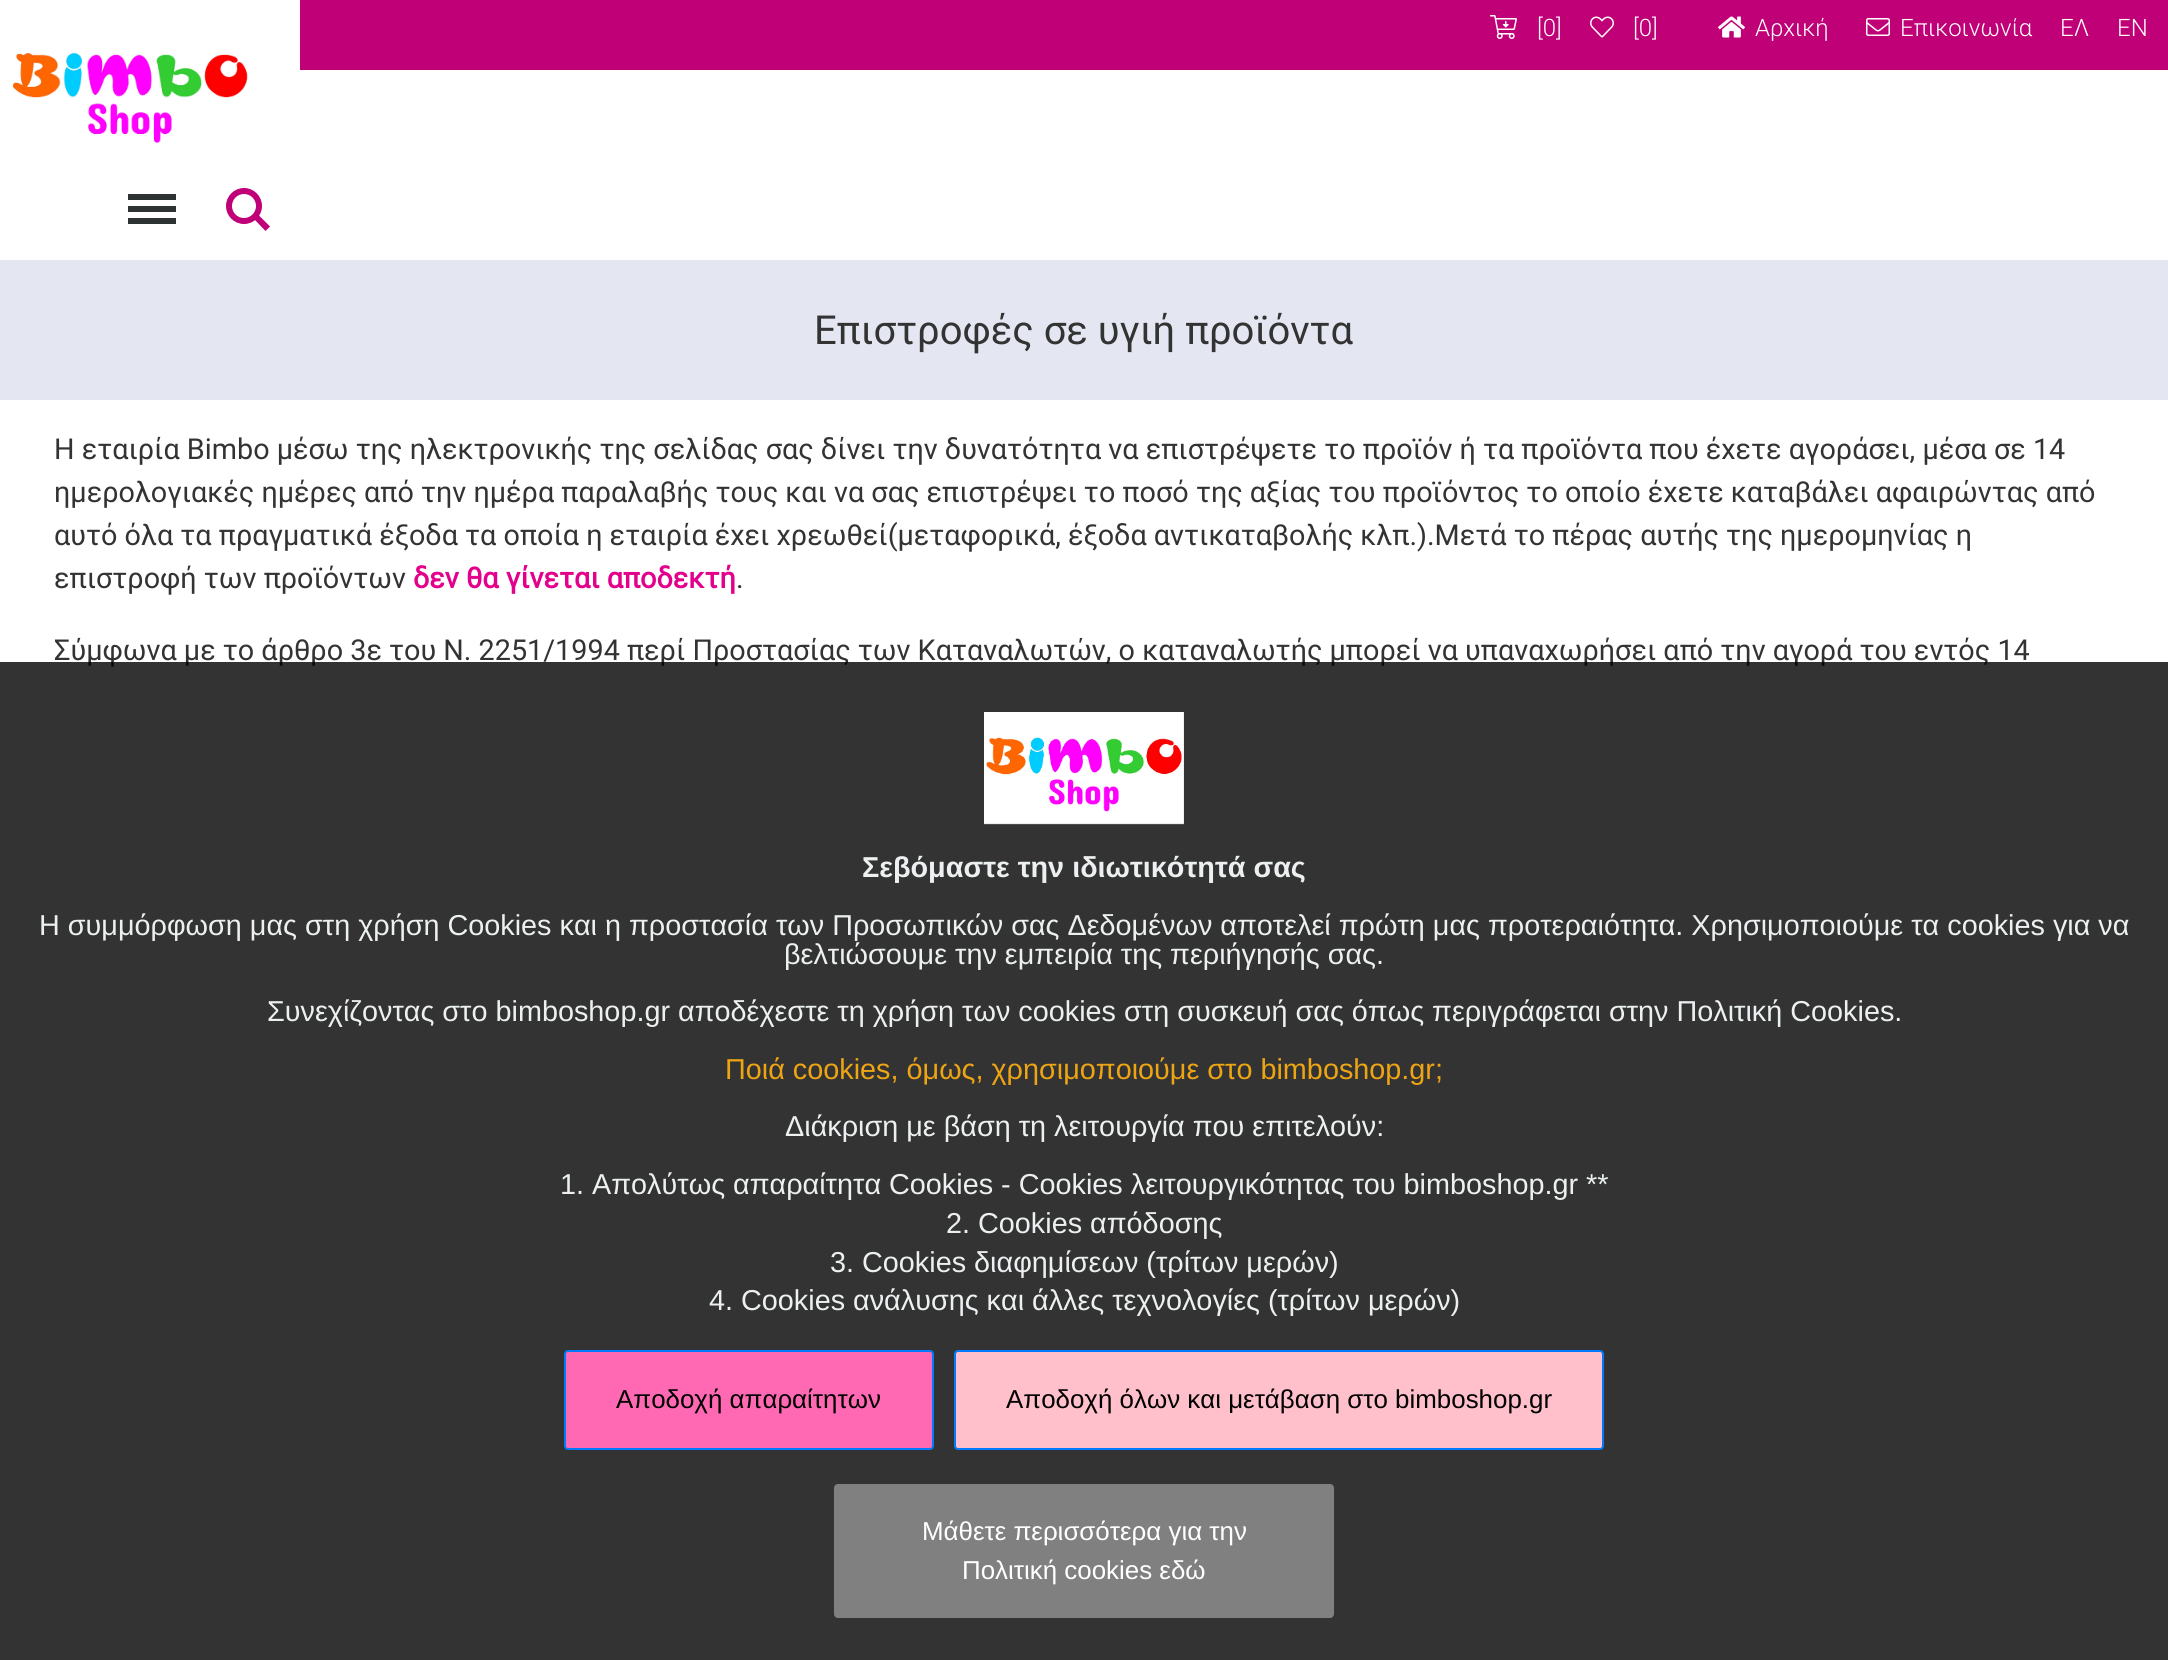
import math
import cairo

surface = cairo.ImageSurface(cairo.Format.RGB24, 2168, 1660)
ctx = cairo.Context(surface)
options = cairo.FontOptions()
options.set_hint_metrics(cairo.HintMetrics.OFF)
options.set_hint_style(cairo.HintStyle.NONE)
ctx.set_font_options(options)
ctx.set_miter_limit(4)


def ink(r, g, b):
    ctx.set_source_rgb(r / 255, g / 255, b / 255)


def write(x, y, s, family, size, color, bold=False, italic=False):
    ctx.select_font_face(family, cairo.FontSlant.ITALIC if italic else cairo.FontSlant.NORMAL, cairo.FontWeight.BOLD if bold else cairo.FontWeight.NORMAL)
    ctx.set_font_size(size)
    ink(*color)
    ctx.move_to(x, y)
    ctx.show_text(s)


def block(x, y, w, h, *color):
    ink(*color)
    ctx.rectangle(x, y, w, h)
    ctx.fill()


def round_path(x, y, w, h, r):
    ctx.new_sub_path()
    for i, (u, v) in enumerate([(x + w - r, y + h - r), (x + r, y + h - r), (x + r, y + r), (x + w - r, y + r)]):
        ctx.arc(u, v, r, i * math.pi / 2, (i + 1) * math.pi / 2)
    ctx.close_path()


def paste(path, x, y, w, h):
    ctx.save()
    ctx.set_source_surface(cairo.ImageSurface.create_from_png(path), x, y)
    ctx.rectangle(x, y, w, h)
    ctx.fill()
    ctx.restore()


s1 = dict(family="Roboto Light", size=24, color=(255, 255, 255))
s2 = dict(family="Roboto", size=40, color=(51, 51, 51))
s3 = dict(family="Roboto", size=28.8, color=(51, 51, 51))
s4 = dict(family="Roboto", size=28.8, color=(227, 0, 140), bold=True)
s5 = dict(family="Liberation Sans", size=28.8, color=(236, 240, 241), bold=True)
s6 = dict(family="Liberation Sans", size=28.8, color=(236, 240, 241))
s7 = dict(family="Liberation Sans", size=28.8, color=(237, 165, 20))
s8 = dict(family="Liberation Sans", size=25.9, color=(0, 0, 0))
s9 = dict(family="Liberation Sans", size=25.9, color=(255, 255, 255))

ink(255, 255, 255)
ctx.paint()
block(300, 0, 1868, 70, 191, 0, 119)
paste("pic1.png", 1490, 15, 27, 24)
write(1537, 36, "[0]", **s1)
paste("pic2.png", 1590, 16, 24, 22)
write(1633, 36, "[0]", **s1)
paste("pic3.png", 1718, 16, 27, 22)
write(1755, 36, "Αρχική", **s1)
paste("pic4.png", 1866, 18, 24, 18)
write(1900, 36, "Επικοινωνία", **s1)
write(2060, 36, "ΕΛ", **s1)
write(2117, 36, "EN", **s1)
paste("pic5.png", 12, 53, 236, 90)
block(128, 206, 48, 6, 46, 50, 51)
block(128, 194, 48, 6, 46, 50, 51)
block(128, 218, 48, 6, 46, 50, 51)
ctx.arc(244, 206, 15, 0, 2 * math.pi)
ink(191, 0, 119)
ctx.set_line_width(6)
ctx.stroke()
ctx.new_path()
ctx.move_to(258.5, 215)
ctx.line_to(270, 226.5)
ctx.line_to(265.5, 231)
ctx.line_to(254.5, 219.5)
ctx.close_path()
ctx.fill()
block(0, 260, 2168, 140, 228, 230, 242)
write(814, 344, "Επιστροφές σε υγιή προϊόντα", **s2)
write(54, 459, "Η εταιρία Bimbo μέσω της ηλεκτρονικής της σελίδας σας δίνει την δυνατότητα να επιστρέψετε το προϊόν ή τα προϊόντα που έχετε αγοράσει, μέσα σε 14", **s3)
write(54, 502, "ημερολογιακές ημέρες από την ημέρα παραλαβής τους και να σας επιστρέψει το ποσό της αξίας του προϊόντος το οποίο έχετε καταβάλει αφαιρώντας από", **s3)
write(54, 545, "αυτό όλα τα πραγματικά έξοδα τα οποία η εταιρία έχει χρεωθεί(μεταφορικά, έξοδα αντικαταβολής κλπ.).Μετά το πέρας αυτής της ημερομηνίας η", **s3)
write(54, 588, "επιστροφή των προϊόντων", **s3)
write(413, 588, "δεν θα γίνεται αποδεκτή", **s4)
write(736, 588, ".", **s3)
write(54, 660, "Σύμφωνα με το άρθρο 3ε του Ν. 2251/1994 περί Προστασίας των Καταναλωτών, ο καταναλωτής μπορεί να υπαναχωρήσει από την αγορά του εντός 14", **s3)
ctx.set_source_rgba(0, 0, 0, 0.8)
ctx.rectangle(0, 662, 2168, 998)
ctx.fill()
paste("pic6.png", 984, 712, 200, 113)
write(862, 877, "Σεβόμαστε την ιδιωτικότητά σας", **s5)
write(39, 935, "Η συμμόρφωση μας στη χρήση Cookies και η προστασία των Προσωπικών σας Δεδομένων αποτελεί πρώτη μας προτεραιότητα. Χρησιμοποιούμε τα cookies για να", **s6)
write(784, 964, "βελτιώσουμε την εμπειρία της περιήγησής σας.", **s6)
write(267, 1021, "Συνεχίζοντας στο bimboshop.gr αποδέχεστε τη χρήση των cookies στη συσκευή σας όπως περιγράφεται στην Πολιτική Cookies.", **s6)
write(725, 1079, "Ποιά cookies, όμως, χρησιμοποιούμε στο bimboshop.gr;", **s7)
write(785, 1136, "Διάκριση με βάση τη λειτουργία που επιτελούν:", **s6)
write(560, 1194, "1. Απολύτως απαραίτητα Cookies - Cookies λειτουργικότητας του bimboshop.gr **", **s6)
write(946, 1233, "2. Cookies απόδοσης", **s6)
write(830, 1272, "3. Cookies διαφημίσεων (τρίτων μερών)", **s6)
write(709, 1310, "4. Cookies ανάλυσης και άλλες τεχνολογίες (τρίτων μερών)", **s6)
ink(255, 105, 180)
round_path(565, 1351, 368, 98, 3)
ctx.fill_preserve()
ink(0, 123, 255)
ctx.set_line_width(2)
ctx.stroke()
write(616, 1408, "Αποδοχή απαραίτητων", **s8)
ink(255, 192, 203)
round_path(955, 1351, 648, 98, 3)
ctx.fill_preserve()
ink(0, 123, 255)
ctx.stroke()
write(1006, 1408, "Αποδοχή όλων και μετάβαση στο bimboshop.gr", **s8)
ink(128, 128, 128)
round_path(834, 1484, 500, 134, 4)
ctx.fill()
write(922, 1540, "Μάθετε περισσότερα για την", **s9)
write(962, 1579, "Πολιτική cookies εδώ", **s9)
surface.write_to_png("screenshot.png")
